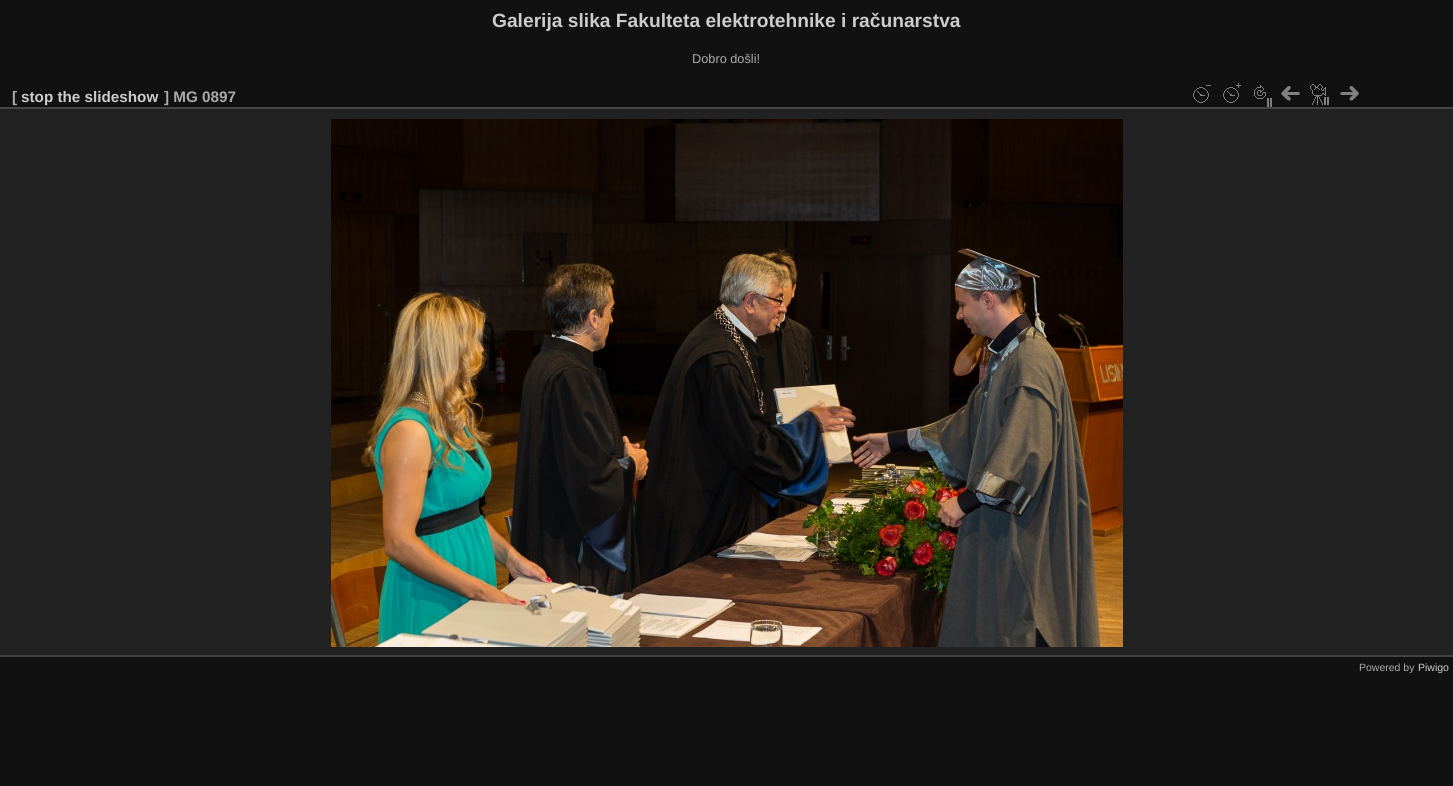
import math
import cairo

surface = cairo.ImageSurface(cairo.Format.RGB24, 1453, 786)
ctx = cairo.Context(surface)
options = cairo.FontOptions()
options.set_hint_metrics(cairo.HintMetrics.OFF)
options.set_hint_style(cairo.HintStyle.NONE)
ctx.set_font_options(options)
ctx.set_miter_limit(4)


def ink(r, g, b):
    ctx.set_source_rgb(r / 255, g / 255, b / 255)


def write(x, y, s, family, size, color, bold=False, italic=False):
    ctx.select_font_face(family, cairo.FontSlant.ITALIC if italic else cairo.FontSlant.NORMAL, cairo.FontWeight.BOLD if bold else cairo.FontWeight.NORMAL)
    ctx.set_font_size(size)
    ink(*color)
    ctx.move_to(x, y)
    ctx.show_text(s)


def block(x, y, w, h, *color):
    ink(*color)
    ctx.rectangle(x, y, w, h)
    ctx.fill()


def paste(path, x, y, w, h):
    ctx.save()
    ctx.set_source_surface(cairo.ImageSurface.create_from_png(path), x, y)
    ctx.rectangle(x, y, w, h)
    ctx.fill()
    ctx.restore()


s1 = dict(family="Liberation Sans", size=19.2, color=(204, 204, 204), bold=True)
s2 = dict(family="Liberation Sans", size=12.75, color=(170, 170, 170))
s3 = dict(family="Liberation Sans", size=15.25, color=(170, 170, 170), bold=True)
s4 = dict(family="Liberation Sans", size=15.25, color=(204, 204, 204), bold=True)
s5 = dict(family="Liberation Sans", size=10.5, color=(170, 170, 170))
s6 = dict(family="Liberation Sans", size=10.5, color=(204, 204, 204))

ink(17, 17, 17)
ctx.paint()
write(492, 27, "Galerija slika Fakulteta elektrotehnike i računarstva", **s1)
write(692, 63, "Dobro došli!", **s2)
block(0, 107, 1453, 2, 68, 68, 68)
write(12, 102, "[", **s3)
write(21, 102, "stop the slideshow", **s4)
write(164, 102, "] MG 0897", **s3)
paste("pic1.png", 1193, 85, 18, 18)
paste("pic2.png", 1223, 83, 18, 20)
paste("pic3.png", 1254, 85, 18, 22)
paste("pic4.png", 1281, 86, 19, 15)
paste("pic5.png", 1310, 84, 19, 21)
paste("pic6.png", 1340, 86, 19, 15)
block(0, 109, 1453, 546, 34, 34, 34)
block(0, 655, 1453, 2, 68, 68, 68)
paste("pic7.png", 331, 119, 792, 528)
write(1359, 671, "Powered by", **s5)
write(1418, 671, "Piwigo", **s6)
surface.write_to_png("screenshot.png")
